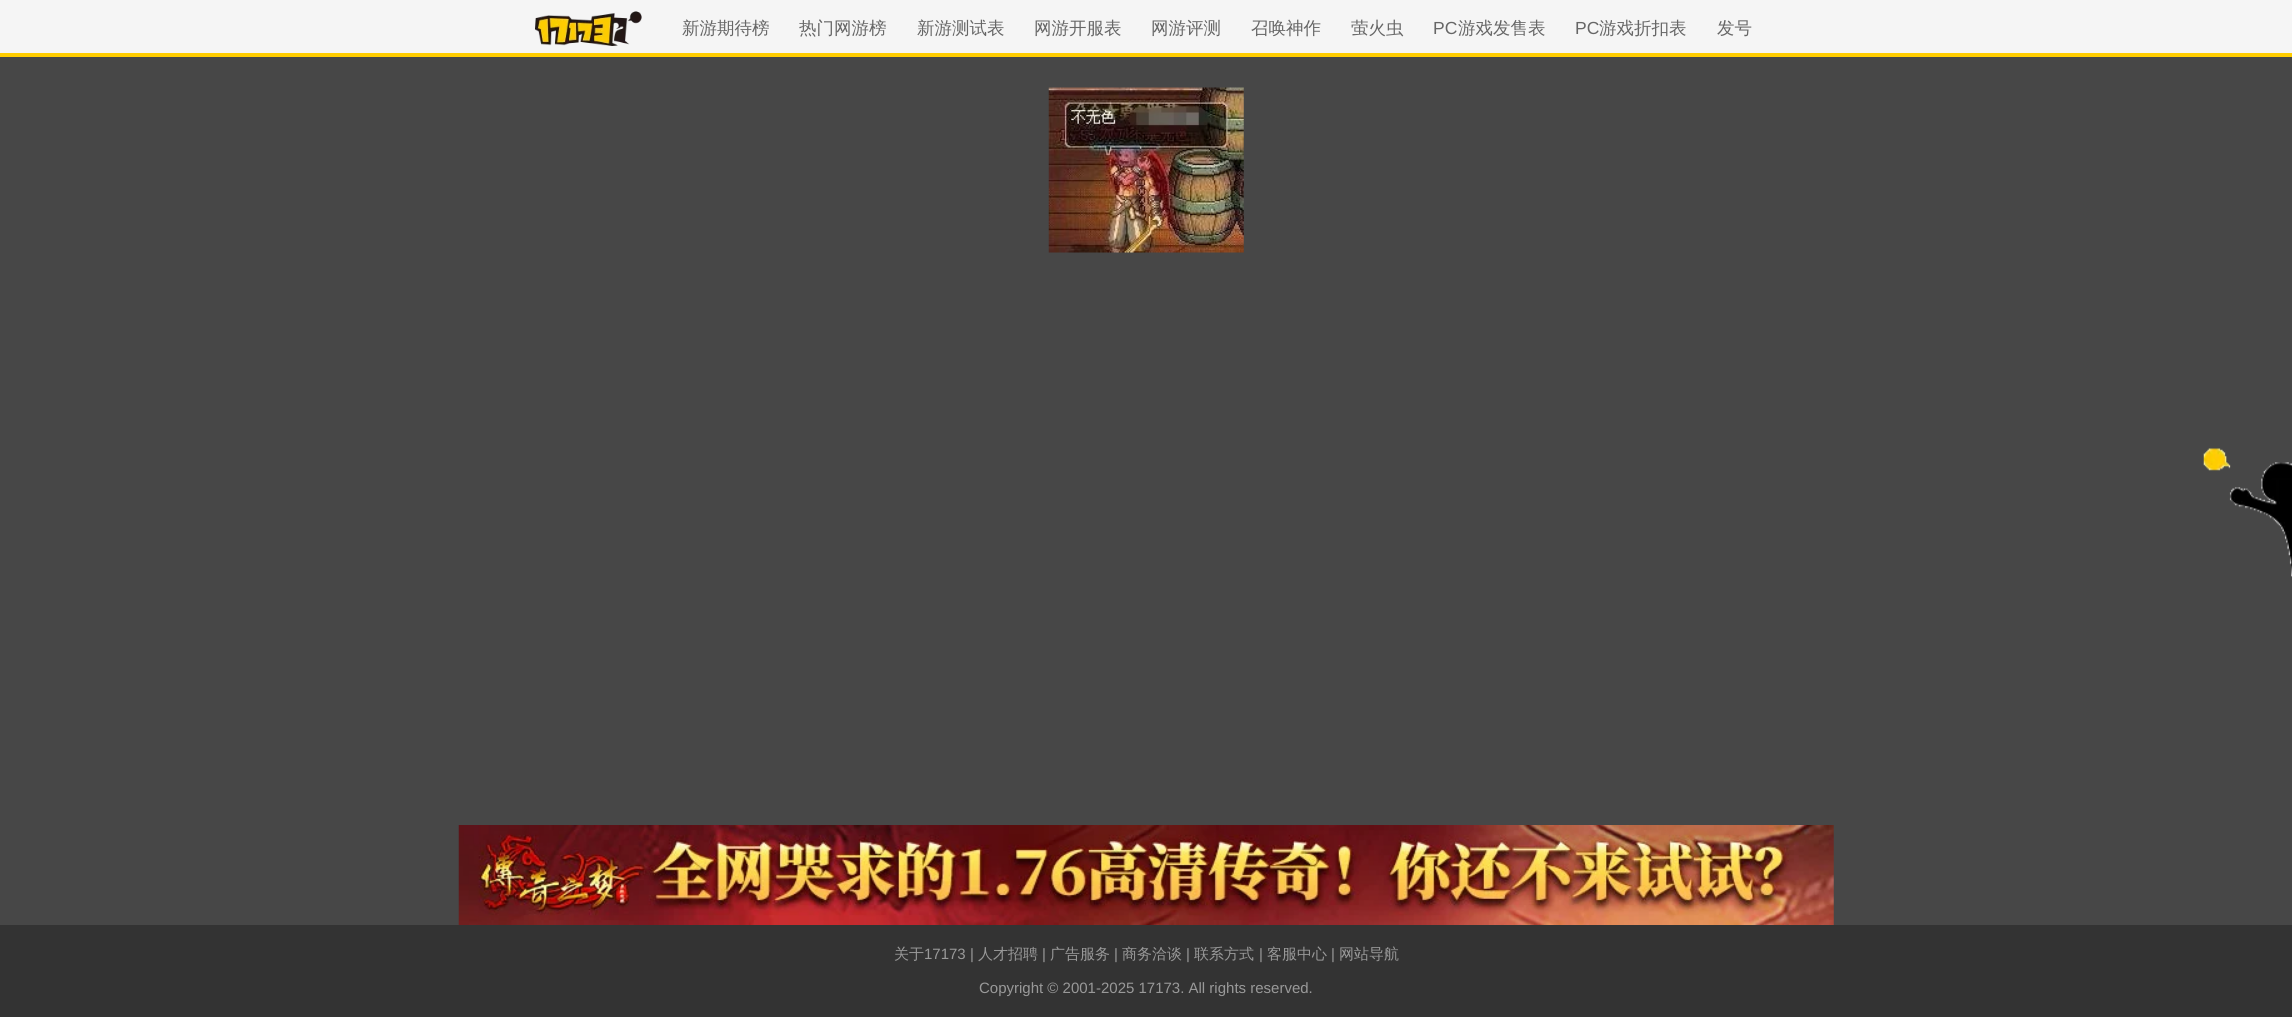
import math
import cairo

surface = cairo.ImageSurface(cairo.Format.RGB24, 2292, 1017)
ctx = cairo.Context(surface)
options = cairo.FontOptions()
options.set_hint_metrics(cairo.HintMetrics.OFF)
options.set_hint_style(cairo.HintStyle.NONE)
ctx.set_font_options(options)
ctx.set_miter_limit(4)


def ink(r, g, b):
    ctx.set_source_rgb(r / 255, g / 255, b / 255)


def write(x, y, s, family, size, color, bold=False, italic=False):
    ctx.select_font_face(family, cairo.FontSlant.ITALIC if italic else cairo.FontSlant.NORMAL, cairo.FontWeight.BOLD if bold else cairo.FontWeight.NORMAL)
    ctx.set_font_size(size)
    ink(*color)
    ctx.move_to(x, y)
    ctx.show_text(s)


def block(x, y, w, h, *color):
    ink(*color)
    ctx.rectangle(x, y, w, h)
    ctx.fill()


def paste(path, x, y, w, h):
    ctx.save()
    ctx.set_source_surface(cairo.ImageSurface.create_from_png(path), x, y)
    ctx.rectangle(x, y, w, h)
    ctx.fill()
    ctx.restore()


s1 = dict(family="WenQuanYi Zen Hei Medium", size=17.5, color=(102, 102, 102))
s2 = dict(family="Liberation Sans", size=17.5, color=(102, 102, 102))
s3 = dict(family="WenQuanYi Zen Hei Medium", size=15, color=(153, 153, 153))
s4 = dict(family="Liberation Sans", size=15, color=(153, 153, 153))

ink(71, 71, 71)
ctx.paint()
block(0, 0, 2292, 53, 245, 245, 245)
block(0, 53, 2292, 4, 255, 205, 0)
paste("pic1.png", 535, 11, 107, 35)
write(682, 34, "新游期待榜", **s1)
write(799, 34, "热门网游榜", **s1)
write(917, 34, "新游测试表", **s1)
write(1034, 34, "网游开服表", **s1)
write(1151, 34, "网游评测", **s1)
write(1251, 34, "召唤神作", **s1)
write(1351, 34, "萤火虫", **s1)
write(1433, 34, "PC", **s2)
write(1458, 34, "游戏发售表", **s1)
write(1575, 34, "PC", **s2)
write(1599, 34, "游戏折扣表", **s1)
write(1717, 34, "发号", **s1)
paste("pic2.png", 1048, 87, 196, 166)
paste("pic3.png", 458, 825, 1376, 100)
paste("pic4.png", 2203, 448, 89, 129)
block(0, 925, 2292, 92, 51, 51, 51)
write(894, 959, "关于", **s3)
write(924, 959, "17173 |", **s4)
write(978, 959, "人才招聘", **s3)
write(1042, 959, "|", **s4)
write(1050, 959, "广告服务", **s3)
write(1114, 959, "|", **s4)
write(1122, 959, "商务洽谈", **s3)
write(1186, 959, "|", **s4)
write(1194, 959, "联系方式", **s3)
write(1259, 959, "|", **s4)
write(1267, 959, "客服中心", **s3)
write(1331, 959, "|", **s4)
write(1339, 959, "网站导航", **s3)
write(979, 993, "Copyright © 2001-2025 17173. All rights reserved.", **s4)
surface.write_to_png("screenshot.png")
